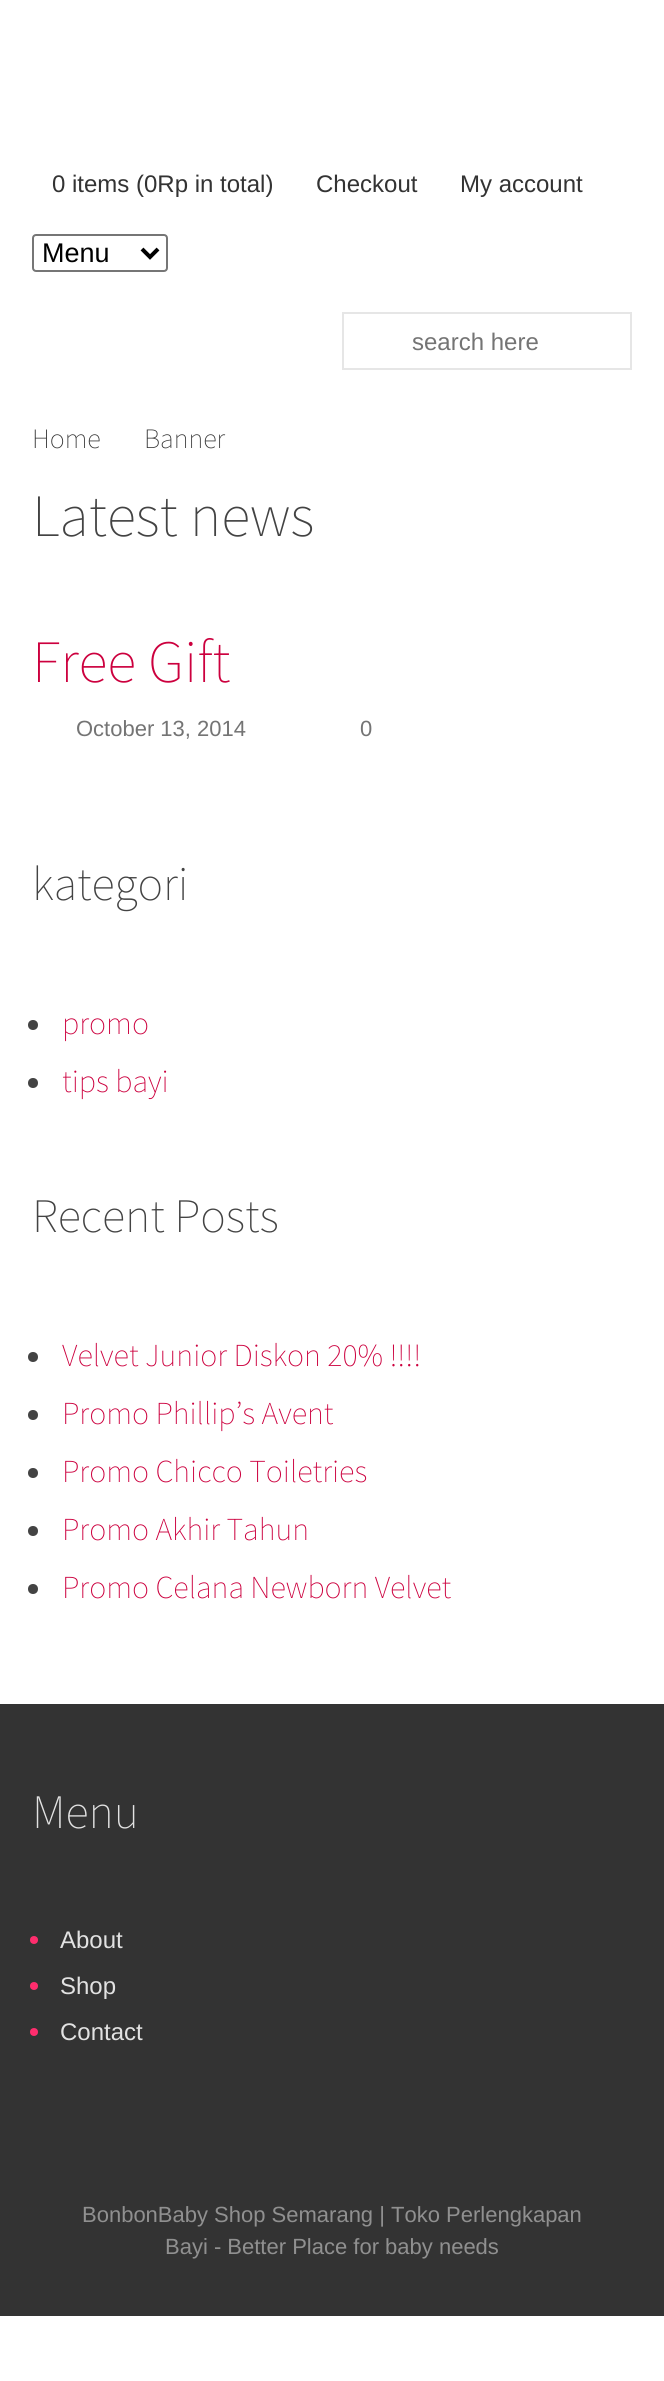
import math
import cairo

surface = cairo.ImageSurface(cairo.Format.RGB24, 664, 2381)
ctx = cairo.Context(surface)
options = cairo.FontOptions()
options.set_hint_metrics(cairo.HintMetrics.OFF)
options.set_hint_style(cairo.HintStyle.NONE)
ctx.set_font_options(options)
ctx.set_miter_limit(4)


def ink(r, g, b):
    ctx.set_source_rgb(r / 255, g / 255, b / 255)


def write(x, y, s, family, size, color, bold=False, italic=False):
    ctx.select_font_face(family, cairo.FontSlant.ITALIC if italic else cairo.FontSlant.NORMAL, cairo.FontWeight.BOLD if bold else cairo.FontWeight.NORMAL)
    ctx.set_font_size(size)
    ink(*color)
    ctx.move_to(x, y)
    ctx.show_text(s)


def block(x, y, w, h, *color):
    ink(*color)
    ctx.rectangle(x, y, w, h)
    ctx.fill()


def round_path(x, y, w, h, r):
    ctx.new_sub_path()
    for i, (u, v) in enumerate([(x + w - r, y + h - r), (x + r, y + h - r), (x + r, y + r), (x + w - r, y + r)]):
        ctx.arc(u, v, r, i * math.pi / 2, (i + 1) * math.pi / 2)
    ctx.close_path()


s1 = dict(family="Liberation Sans", size=24, color=(51, 51, 51))
s2 = dict(family="Liberation Sans", size=27, color=(0, 0, 0))
s3 = dict(family="Liberation Sans", size=24, color=(116, 116, 116))
s4 = dict(family="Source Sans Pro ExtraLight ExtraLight", size=28, color=(51, 51, 51))
s5 = dict(family="Source Sans Pro ExtraLight ExtraLight", size=60, color=(67, 67, 67))
s6 = dict(family="Source Sans Pro ExtraLight ExtraLight", size=60, color=(204, 0, 62))
s7 = dict(family="Liberation Sans", size=22, color=(116, 116, 116))
s8 = dict(family="Source Sans Pro ExtraLight ExtraLight", size=48, color=(67, 67, 67))
s9 = dict(family="Source Sans Pro ExtraLight ExtraLight", size=32, color=(204, 0, 62))
s10 = dict(family="Source Sans Pro ExtraLight ExtraLight", size=48, color=(226, 226, 226))
s11 = dict(family="Liberation Sans", size=24, color=(226, 226, 226))
s12 = dict(family="Liberation Sans", size=22, color=(144, 144, 144))

ink(255, 255, 255)
ctx.paint()
write(52, 192, "0 items (0Rp in total)", **s1)
write(316, 192, "Checkout", **s1)
write(460, 192, "My account", **s1)
round_path(33, 235, 134, 36, 3)
ink(118, 118, 118)
ctx.stroke()
ctx.new_path()
ctx.move_to(142, 249)
ctx.line_to(150, 257)
ctx.line_to(158, 249)
ink(0, 0, 0)
ctx.set_line_width(4)
ctx.stroke()
write(42, 262, "Menu", **s2)
ctx.rectangle(343, 313, 288, 56)
ink(230, 230, 230)
ctx.set_line_width(2)
ctx.stroke()
write(412, 350, "search here", **s3)
write(32, 448, "Home", **s4)
write(144, 448, "Banner", **s4)
write(32, 536, "Latest news", **s5)
write(32, 682, "Free Gift", **s6)
write(76, 736, "October 13, 2014", **s7)
write(360, 736, "0", **s7)
write(32, 900, "kategori", **s8)
ctx.new_path()
ctx.arc(33, 1025, 5, 0, 2 * math.pi)
ctx.fill()
write(62, 1034, "promo", **s9)
ink(67, 67, 67)
ctx.new_path()
ctx.arc(33, 1083, 5, 0, 2 * math.pi)
ctx.fill()
write(62, 1092, "tips bayi", **s9)
write(32, 1232, "Recent Posts", **s8)
ctx.new_path()
ctx.arc(33, 1357, 5, 0, 2 * math.pi)
ctx.fill()
write(62, 1366, "Velvet Junior Diskon 20% !!!!", **s9)
ink(67, 67, 67)
ctx.new_path()
ctx.arc(33, 1415, 5, 0, 2 * math.pi)
ctx.fill()
write(62, 1424, "Promo Phillip’s Avent", **s9)
ink(67, 67, 67)
ctx.new_path()
ctx.arc(33, 1473, 5, 0, 2 * math.pi)
ctx.fill()
write(62, 1482, "Promo Chicco Toiletries", **s9)
ink(67, 67, 67)
ctx.new_path()
ctx.arc(33, 1531, 5, 0, 2 * math.pi)
ctx.fill()
write(62, 1540, "Promo Akhir Tahun", **s9)
ink(67, 67, 67)
ctx.new_path()
ctx.arc(33, 1589, 5, 0, 2 * math.pi)
ctx.fill()
write(62, 1598, "Promo Celana Newborn Velvet", **s9)
block(0, 1704, 664, 612, 51, 51, 51)
write(32, 1828, "Menu", **s10)
ink(255, 45, 109)
ctx.new_path()
ctx.arc(34, 1940, 4, 0, 2 * math.pi)
ctx.fill()
write(60, 1948, "About", **s11)
ink(255, 45, 109)
ctx.new_path()
ctx.arc(34, 1986, 4, 0, 2 * math.pi)
ctx.fill()
write(60, 1994, "Shop", **s11)
ink(255, 45, 109)
ctx.new_path()
ctx.arc(34, 2032, 4, 0, 2 * math.pi)
ctx.fill()
write(60, 2040, "Contact", **s11)
write(82, 2222, "BonbonBaby Shop Semarang | Toko Perlengkapan", **s12)
write(165, 2254, "Bayi - Better Place for baby needs", **s12)
surface.write_to_png("screenshot.png")
